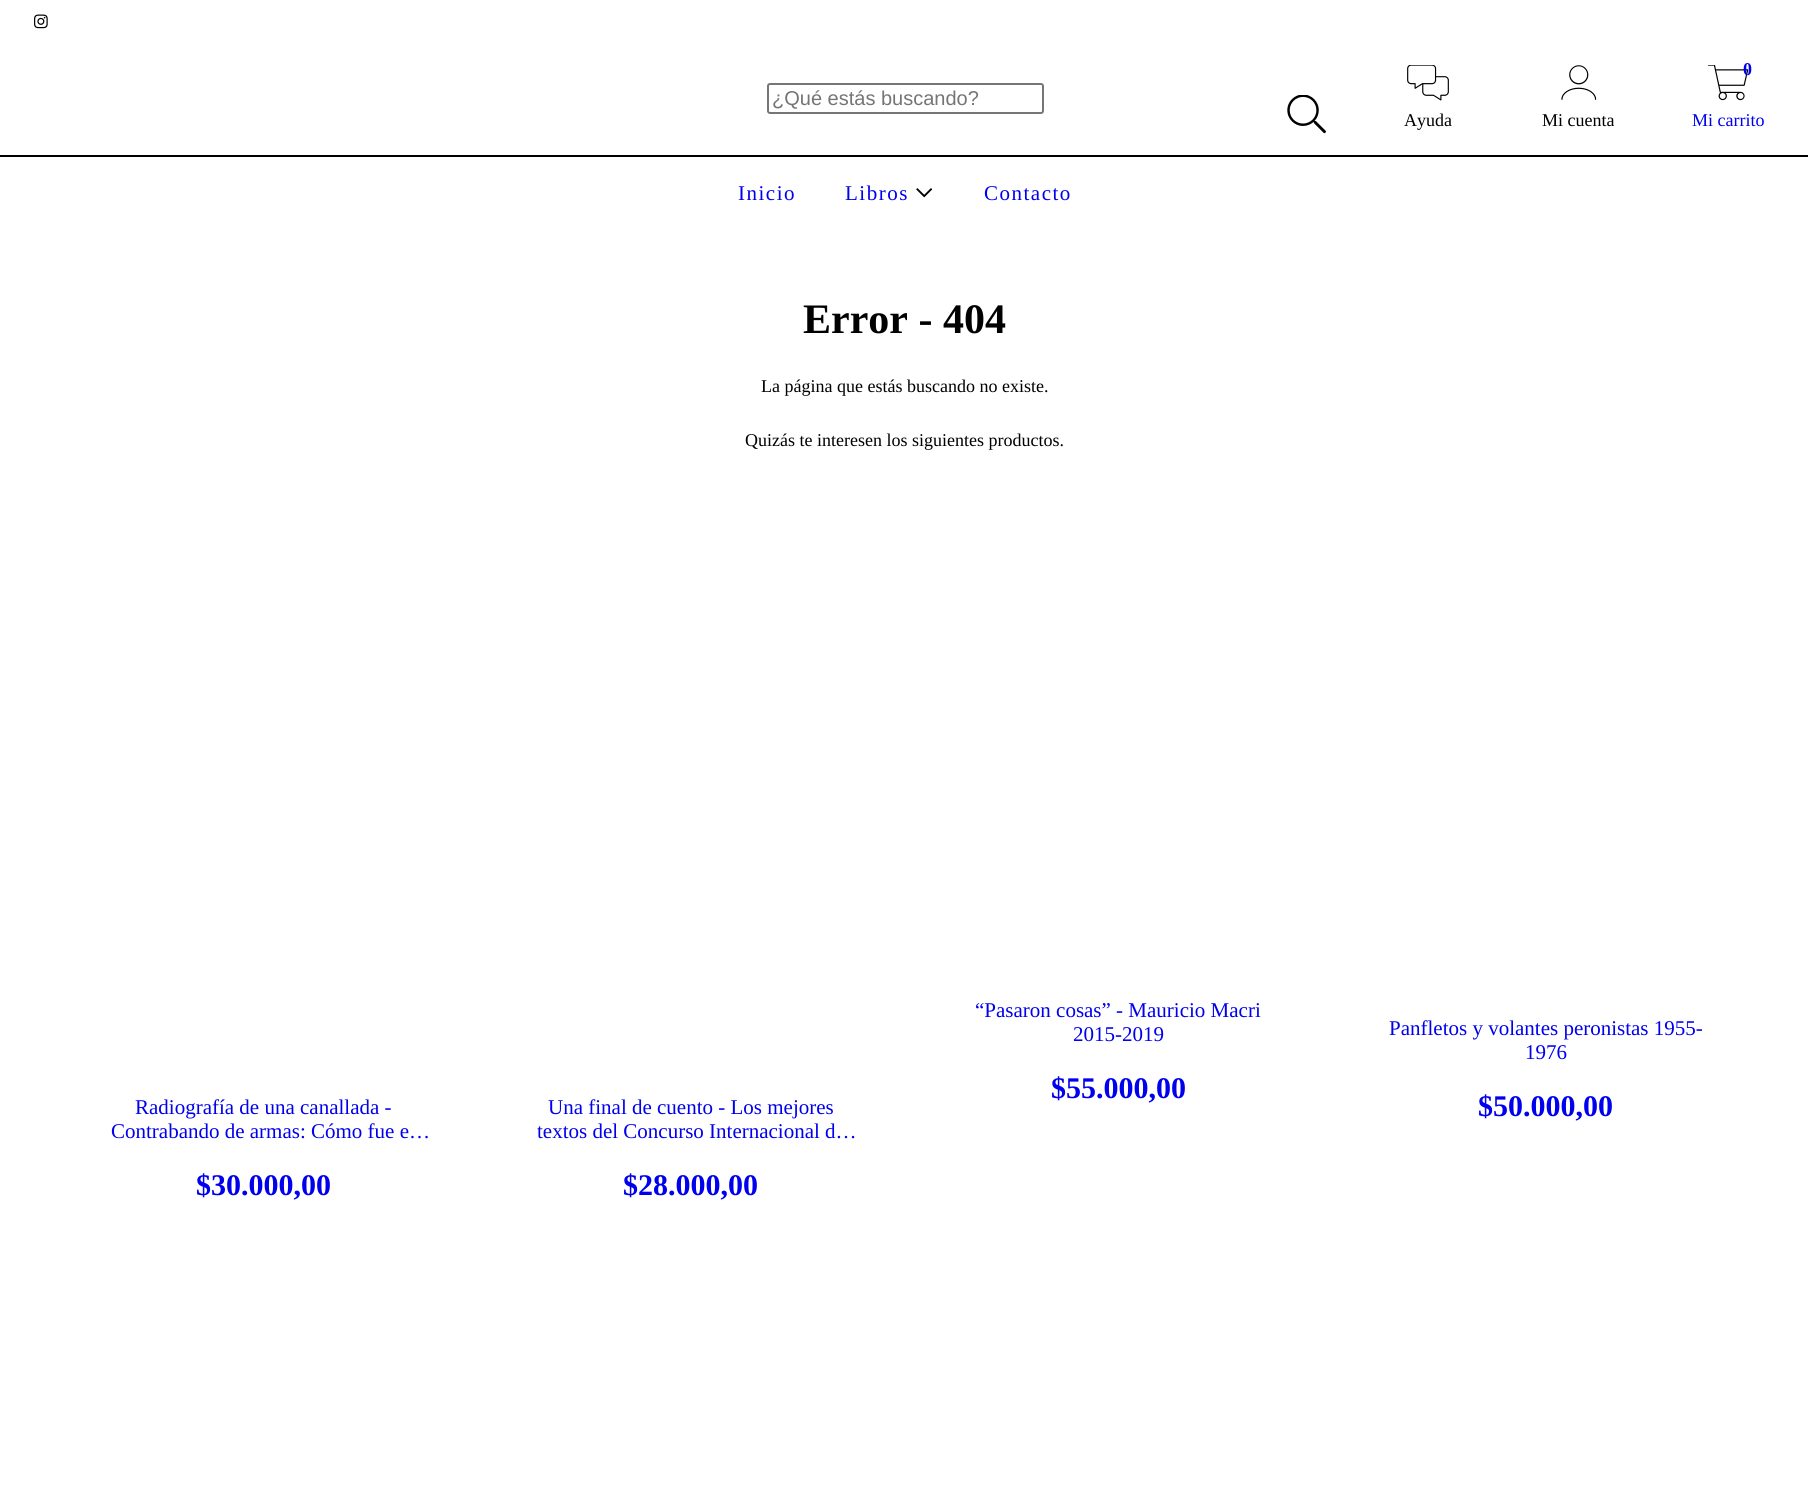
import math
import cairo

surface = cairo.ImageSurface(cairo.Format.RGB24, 1808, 1504)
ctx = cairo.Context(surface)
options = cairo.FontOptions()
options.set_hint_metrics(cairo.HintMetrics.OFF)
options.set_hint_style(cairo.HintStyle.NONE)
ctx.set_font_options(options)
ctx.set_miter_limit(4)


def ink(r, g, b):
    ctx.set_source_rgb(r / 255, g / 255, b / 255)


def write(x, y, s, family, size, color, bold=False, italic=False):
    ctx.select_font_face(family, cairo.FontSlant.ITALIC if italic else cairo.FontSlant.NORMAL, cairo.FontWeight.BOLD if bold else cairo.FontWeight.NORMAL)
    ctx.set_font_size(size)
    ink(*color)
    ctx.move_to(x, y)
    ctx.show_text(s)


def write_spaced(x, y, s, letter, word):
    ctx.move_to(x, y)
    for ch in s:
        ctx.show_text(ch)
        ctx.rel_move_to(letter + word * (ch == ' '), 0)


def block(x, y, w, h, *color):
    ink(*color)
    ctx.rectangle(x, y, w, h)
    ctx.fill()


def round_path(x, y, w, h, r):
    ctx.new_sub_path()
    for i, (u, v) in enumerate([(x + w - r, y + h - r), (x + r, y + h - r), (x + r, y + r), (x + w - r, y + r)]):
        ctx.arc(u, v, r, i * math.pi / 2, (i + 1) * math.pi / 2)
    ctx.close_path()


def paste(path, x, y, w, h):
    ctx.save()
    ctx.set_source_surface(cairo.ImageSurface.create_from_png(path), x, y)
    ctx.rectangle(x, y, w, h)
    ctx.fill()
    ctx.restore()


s1 = dict(family="Liberation Sans", size=20, color=(117, 117, 117))
s2 = dict(family="Liberation Serif", size=18, color=(0, 0, 0))
s3 = dict(family="Liberation Serif", size=18, color=(0, 0, 238), bold=True)
s4 = dict(family="Liberation Serif", size=18, color=(0, 0, 238))
s5 = dict(family="Liberation Serif", size=42, color=(0, 0, 0), bold=True)
s6 = dict(family="Liberation Serif", size=21, color=(0, 0, 238))
s7 = dict(family="Liberation Serif", size=30, color=(0, 0, 238), bold=True)

ink(255, 255, 255)
ctx.paint()
paste("pic1.png", 34, 14, 14, 15)
round_path(768, 84, 275, 29, 2)
ink(118, 118, 118)
ctx.stroke()
write(772, 105, "¿Qué estás buscando?", **s1)
paste("pic2.png", 1287, 95, 39, 39)
paste("pic3.png", 1407, 65, 42, 36)
write(1404, 126, "Ayuda", **s2)
paste("pic4.png", 1561, 65, 36, 35)
write(1542, 126, "Mi cuenta", **s2)
paste("pic5.png", 1707, 65, 42, 36)
write(1743, 75, "0", **s3)
write(1692, 126, "Mi carrito", **s4)
block(0, 155, 1808, 2, 0, 0, 0)
ctx.set_font_size(21)
ink(0, 0, 238)
write_spaced(738, 200, "Inicio", 1.5, 0)
write_spaced(845, 200, "Libros", 1.5, 0)
paste("pic6.png", 916, 188, 17, 10)
write_spaced(984, 200, "Contacto", 1.5, 0)
write(803, 333, "Error - 404", **s5)
write(761, 392, "La página que estás buscando no existe.", **s2)
write(745, 446, "Quizás te interesen los siguientes productos.", **s2)
write(975, 1017, "“Pasaron cosas” - Mauricio Macri", **s6)
write(1073, 1041, "2015-2019", **s6)
write(1051, 1098, "$55.000,00", **s7)
write(1389, 1035, "Panfletos y volantes peronistas 1955-", **s6)
write(1525, 1059, "1976", **s6)
write(1478, 1116, "$50.000,00", **s7)
write(135, 1114, "Radiografía de una canallada -", **s6)
write(111, 1138, "Contrabando de armas: Cómo fue e…", **s6)
write(196, 1195, "$30.000,00", **s7)
write(548, 1114, "Una final de cuento - Los mejores", **s6)
write(537, 1138, "textos del Concurso Internacional d…", **s6)
write(623, 1195, "$28.000,00", **s7)
surface.write_to_png("screenshot.png")
